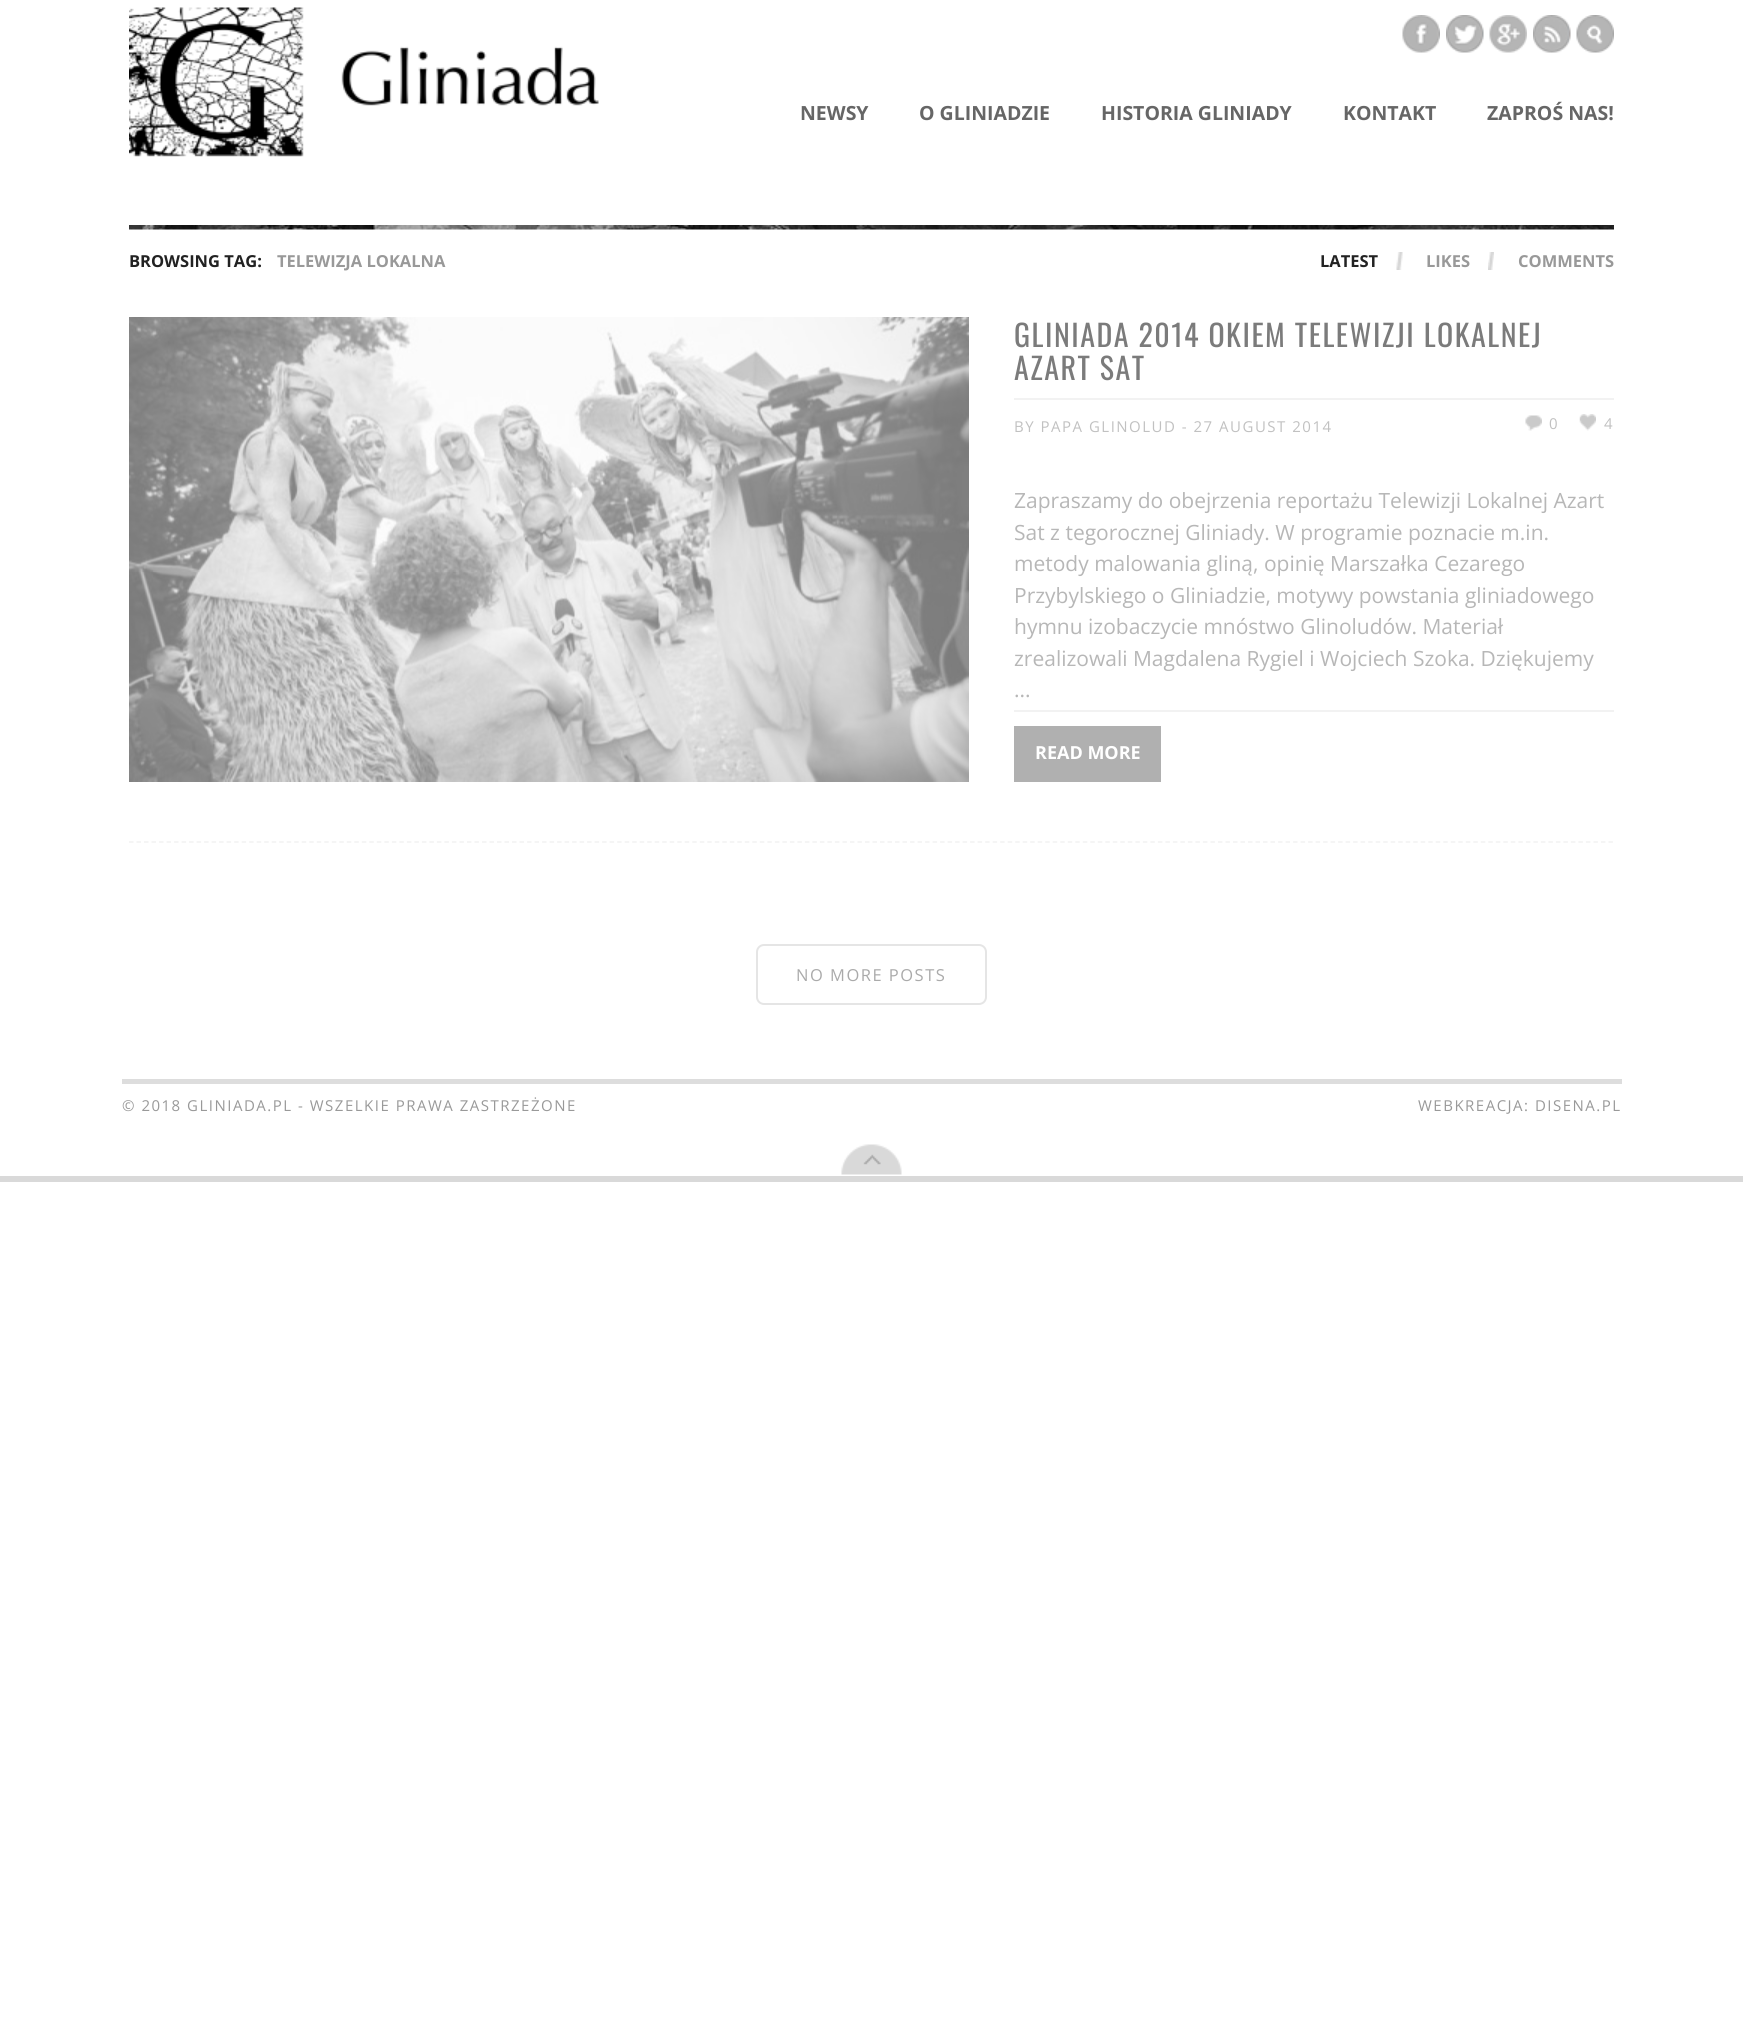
import math
import cairo

surface = cairo.ImageSurface(cairo.Format.RGB24, 1743, 2042)
ctx = cairo.Context(surface)
options = cairo.FontOptions()
options.set_hint_metrics(cairo.HintMetrics.OFF)
options.set_hint_style(cairo.HintStyle.NONE)
ctx.set_font_options(options)
ctx.set_miter_limit(4)


def ink(r, g, b):
    ctx.set_source_rgb(r / 255, g / 255, b / 255)


def write(x, y, s, family, size, color, bold=False, italic=False):
    ctx.select_font_face(family, cairo.FontSlant.ITALIC if italic else cairo.FontSlant.NORMAL, cairo.FontWeight.BOLD if bold else cairo.FontWeight.NORMAL)
    ctx.set_font_size(size)
    ink(*color)
    ctx.move_to(x, y)
    ctx.show_text(s)


def write_spaced(x, y, s, letter, word):
    ctx.move_to(x, y)
    for ch in s:
        ctx.show_text(ch)
        ctx.rel_move_to(letter + word * (ch == ' '), 0)


def block(x, y, w, h, *color):
    ink(*color)
    ctx.rectangle(x, y, w, h)
    ctx.fill()


def round_path(x, y, w, h, r):
    ctx.new_sub_path()
    for i, (u, v) in enumerate([(x + w - r, y + h - r), (x + r, y + h - r), (x + r, y + r), (x + w - r, y + r)]):
        ctx.arc(u, v, r, i * math.pi / 2, (i + 1) * math.pi / 2)
    ctx.close_path()


def paste(path, x, y, w, h):
    ctx.save()
    ctx.set_source_surface(cairo.ImageSurface.create_from_png(path), x, y)
    ctx.rectangle(x, y, w, h)
    ctx.fill()
    ctx.restore()


s1 = dict(family="Open Sans", size=19.5, color=(102, 102, 102), bold=True)
s2 = dict(family="Open Sans", size=16.5, color=(34, 34, 34), bold=True)
s3 = dict(family="Open Sans", size=16.5, color=(153, 153, 153), bold=True)
s4 = dict(family="Open Sans", size=21, color=(183, 183, 183))
s5 = dict(family="Open Sans", size=18, color=(255, 255, 255), bold=True)

ink(255, 255, 255)
ctx.paint()
paste("pic1.png", 129, 7, 470, 150)
paste("pic2.png", 1402, 15, 38, 38)
paste("pic3.png", 1446, 15, 38, 38)
paste("pic4.png", 1489, 15, 38, 38)
paste("pic5.png", 1533, 15, 38, 38)
paste("pic6.png", 1576, 15, 38, 38)
write(800, 120, "NEWSY", **s1)
write(919, 120, "O GLINIADZIE", **s1)
write(1101, 120, "HISTORIA GLINIADY", **s1)
write(1343, 120, "KONTAKT", **s1)
write(1487, 120, "ZAPROŚ NAS!", **s1)
paste("pic7.png", 129, 225, 1485, 5)
write(129, 267, "BROWSING TAG:", **s2)
write(277, 267, "TELEWIZJA LOKALNA", **s3)
paste("pic8.png", 1396, 252, 7, 18)
write(1320, 267, "LATEST", **s2)
paste("pic9.png", 1488, 252, 6, 18)
write(1426, 267, "LIKES", **s3)
write(1518, 267, "COMMENTS", **s3)
ctx.new_path()
ctx.move_to(129, 842)
ctx.line_to(1614, 842)
ink(242, 242, 242)
ctx.set_line_width(1.5)
ctx.set_dash([4.5, 3.01])
ctx.stroke()
paste("pic10.png", 129, 317, 840, 465)
block(1014, 398, 600, 2, 242, 242, 242)
ctx.select_font_face("Oswald")
ctx.set_font_size(30)
ink(123, 123, 123)
write_spaced(1014, 347, "GLINIADA 2014 OKIEM TELEWIZJI LOKALNEJ", 1.5, 0)
write_spaced(1014, 380, "AZART SAT", 1.5, 0)
ctx.select_font_face("Open Sans")
ctx.set_font_size(15)
ink(193, 193, 193)
write_spaced(1014, 432, "BY PAPA GLINOLUD - 27 AUGUST 2014", 1.5, 0)
paste("pic11.png", 1525, 415, 17, 16)
write_spaced(1549, 429, "0", 1.5, 0)
paste("pic12.png", 1579, 414, 17, 17)
write_spaced(1604, 429, "4", 1.5, 0)
write(1014, 508, "Zapraszamy do obejrzenia reportażu Telewizji Lokalnej Azart", **s4)
write(1014, 540, "Sat z tegorocznej Gliniady. W programie poznacie m.in.", **s4)
write(1014, 571, "metody malowania gliną, opinię Marszałka Cezarego", **s4)
write(1014, 603, "Przybylskiego o Gliniadzie, motywy powstania gliniadowego", **s4)
write(1014, 634, "hymnu izobaczycie mnóstwo Glinoludów. Materiał", **s4)
write(1014, 666, "zrealizowali Magdalena Rygiel i Wojciech Szoka. Dziękujemy", **s4)
write(1014, 697, "...", **s4)
block(1014, 710, 600, 2, 242, 242, 242)
block(1014, 726, 147, 56, 176, 176, 176)
write(1035, 759, "READ MORE", **s5)
round_path(757, 945, 229, 59, 7)
ink(229, 229, 229)
ctx.set_line_width(2)
ctx.set_dash([])
ctx.stroke()
ctx.select_font_face("Open Sans")
ctx.set_font_size(16.5)
ink(170, 170, 170)
write_spaced(796, 981, "NO MORE POSTS", 1.5, 0)
block(122, 1079, 1500, 5, 221, 221, 221)
ctx.set_font_size(15)
ink(153, 153, 153)
write_spaced(122, 1111, "© 2018 GLINIADA.PL - WSZELKIE PRAWA ZASTRZEŻONE", 1.5, 0)
write_spaced(1418, 1111, "WEBKREACJA: DISENA.PL", 1.5, 0)
paste("pic13.png", 841, 1144, 61, 31)
block(0, 1176, 1743, 6, 217, 217, 217)
surface.write_to_png("screenshot.png")
